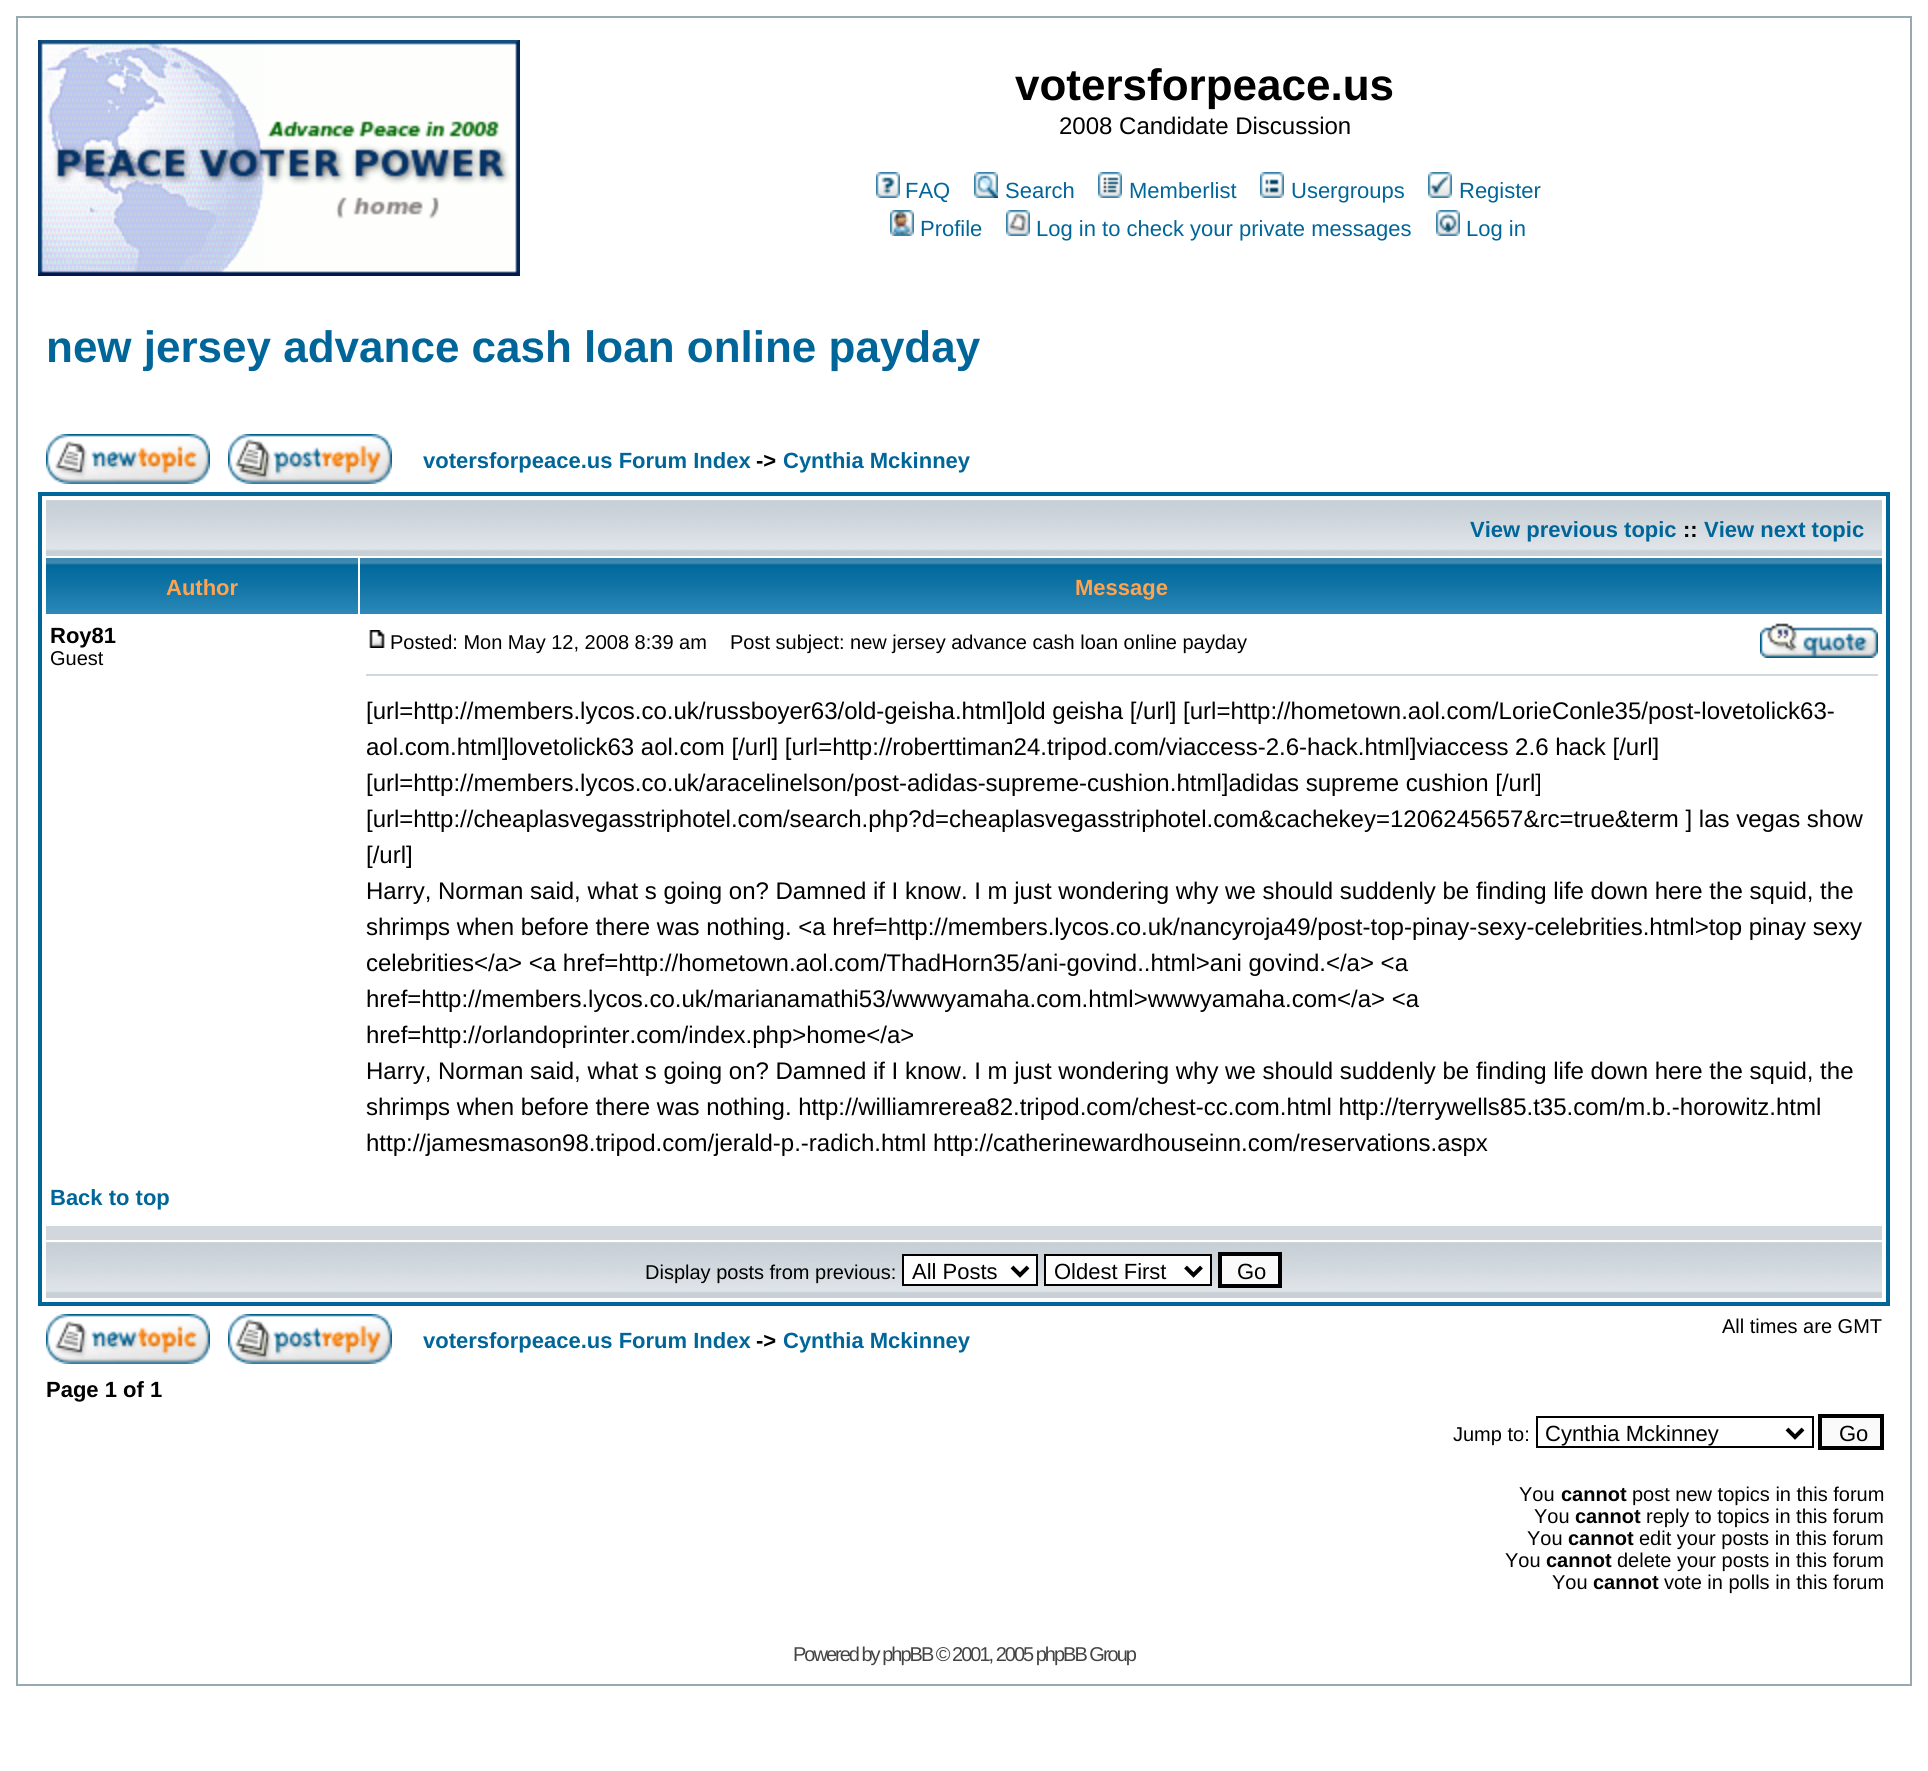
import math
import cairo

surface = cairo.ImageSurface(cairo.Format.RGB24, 1928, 1771)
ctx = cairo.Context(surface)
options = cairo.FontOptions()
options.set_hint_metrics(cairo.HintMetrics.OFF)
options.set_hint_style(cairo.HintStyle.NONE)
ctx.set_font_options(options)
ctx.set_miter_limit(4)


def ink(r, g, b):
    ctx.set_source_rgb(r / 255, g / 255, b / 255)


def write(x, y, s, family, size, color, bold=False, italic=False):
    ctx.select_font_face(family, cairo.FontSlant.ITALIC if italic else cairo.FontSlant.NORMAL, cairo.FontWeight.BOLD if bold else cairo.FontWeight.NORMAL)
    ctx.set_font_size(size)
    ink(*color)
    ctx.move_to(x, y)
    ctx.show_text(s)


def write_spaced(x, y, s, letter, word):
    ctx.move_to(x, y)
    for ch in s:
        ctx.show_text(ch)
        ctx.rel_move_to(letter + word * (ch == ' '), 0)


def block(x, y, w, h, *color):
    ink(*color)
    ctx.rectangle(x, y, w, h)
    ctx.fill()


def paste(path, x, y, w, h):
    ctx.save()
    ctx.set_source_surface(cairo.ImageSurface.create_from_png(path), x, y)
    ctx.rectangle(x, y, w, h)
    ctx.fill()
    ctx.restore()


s1 = dict(family="Liberation Sans", size=44, color=(0, 0, 0), bold=True)
s2 = dict(family="Liberation Sans", size=24, color=(0, 0, 0))
s3 = dict(family="Liberation Sans", size=22, color=(0, 102, 153))
s4 = dict(family="Liberation Sans", size=44, color=(0, 102, 153), bold=True)
s5 = dict(family="Liberation Sans", size=22, color=(0, 102, 153), bold=True)
s6 = dict(family="Liberation Sans", size=22, color=(0, 0, 0), bold=True)
s7 = dict(family="Liberation Sans", size=22, color=(255, 163, 79), bold=True)
s8 = dict(family="Liberation Sans", size=20, color=(0, 0, 0))
s9 = dict(family="Liberation Sans", size=22, color=(0, 0, 0))
s10 = dict(family="Liberation Sans", size=20, color=(0, 0, 0), bold=True)

ink(255, 255, 255)
ctx.paint()
ctx.rectangle(17, 17, 1894, 1668)
ink(152, 170, 177)
ctx.stroke()
paste("pic1.png", 38, 40, 482, 236)
write(1015, 100, "votersforpeace.us", **s1)
write(1059, 134, "2008 Candidate Discussion", **s2)
paste("pic2.png", 876, 172, 24, 26)
write(905, 198, "FAQ", **s3)
paste("pic3.png", 974, 172, 24, 26)
write(1005, 198, "Search", **s3)
paste("pic4.png", 1098, 172, 24, 26)
write(1129, 198, "Memberlist", **s3)
paste("pic5.png", 1260, 172, 24, 26)
write(1291, 198, "Usergroups", **s3)
paste("pic6.png", 1428, 172, 24, 26)
write(1459, 198, "Register", **s3)
paste("pic7.png", 890, 210, 24, 26)
write(920, 236, "Profile", **s3)
paste("pic8.png", 1006, 210, 24, 26)
write(1036, 236, "Log in to check your private messages", **s3)
paste("pic9.png", 1436, 210, 24, 26)
write(1466, 236, "Log in", **s3)
write(46, 362, "new jersey advance cash loan online payday", **s4)
paste("pic10.png", 46, 434, 164, 50)
paste("pic11.png", 228, 434, 164, 50)
write(423, 468, "votersforpeace.us Forum Index", **s5)
write(756, 468, "->", **s6)
write(783, 468, "Cynthia Mckinney", **s5)
ctx.rectangle(40, 494, 1848, 810)
ctx.set_line_width(4)
ctx.stroke()
paste("pic12.png", 46, 500, 1836, 56)
write(1470, 537, "View previous topic", **s5)
write(1683, 537, "::", **s6)
write(1704, 537, "View next topic", **s5)
paste("pic13.png", 46, 558, 312, 56)
write(166, 595, "Author", **s7)
paste("pic14.png", 360, 558, 1522, 56)
write(1075, 595, "Message", **s7)
write(50, 643, "Roy81", **s6)
write(50, 665, "Guest", **s8)
paste("pic15.png", 369, 630, 16, 18)
write(390, 649, "Posted: Mon May 12, 2008 8:39 am", **s8)
write(730, 649, "Post subject: new jersey advance cash loan online payday", **s8)
paste("pic16.png", 1760, 623, 118, 35)
block(366, 674, 1512, 2, 209, 215, 220)
write(366, 719, "[url=http://members.lycos.co.uk/russboyer63/old-geisha.html]old geisha [/url] [url=http://hometown.aol.com/LorieConle35/post-lovetolick63-", **s2)
write(366, 755, "aol.com.html]lovetolick63 aol.com [/url] [url=http://roberttiman24.tripod.com/viaccess-2.6-hack.html]viaccess 2.6 hack [/url]", **s2)
write(366, 791, "[url=http://members.lycos.co.uk/aracelinelson/post-adidas-supreme-cushion.html]adidas supreme cushion [/url]", **s2)
write(366, 827, "[url=http://cheaplasvegasstriphotel.com/search.php?d=cheaplasvegasstriphotel.com&cachekey=1206245657&rc=true&term ] las vegas show", **s2)
write(366, 863, "[/url]", **s2)
write(366, 899, "Harry, Norman said, what s going on? Damned if I know. I m just wondering why we should suddenly be finding life down here the squid, the", **s2)
write(366, 935, "shrimps when before there was nothing. <a href=http://members.lycos.co.uk/nancyroja49/post-top-pinay-sexy-celebrities.html>top pinay sexy", **s2)
write(366, 971, "celebrities</a> <a href=http://hometown.aol.com/ThadHorn35/ani-govind..html>ani govind.</a> <a", **s2)
write(366, 1007, "href=http://members.lycos.co.uk/marianamathi53/wwwyamaha.com.html>wwwyamaha.com</a> <a", **s2)
write(366, 1043, "href=http://orlandoprinter.com/index.php>home</a>", **s2)
write(366, 1079, "Harry, Norman said, what s going on? Damned if I know. I m just wondering why we should suddenly be finding life down here the squid, the", **s2)
write(366, 1115, "shrimps when before there was nothing. http://williamrerea82.tripod.com/chest-cc.com.html http://terrywells85.t35.com/m.b.-horowitz.html", **s2)
write(366, 1151, "http://jamesmason98.tripod.com/jerald-p.-radich.html http://catherinewardhouseinn.com/reservations.aspx", **s2)
write(50, 1205, "Back to top", **s5)
block(46, 1226, 1836, 14, 209, 215, 220)
paste("pic12.png", 46, 1242, 1836, 56)
write(645, 1279, "Display posts from previous:", **s8)
ink(255, 255, 255)
ctx.rectangle(903, 1255, 134, 30)
ctx.fill_preserve()
ink(0, 0, 0)
ctx.set_line_width(2)
ctx.stroke()
ctx.new_path()
ctx.move_to(1012, 1267)
ctx.line_to(1020, 1275)
ctx.line_to(1028, 1267)
ctx.set_line_width(4)
ctx.stroke()
write(912, 1279, "All Posts", **s9)
ink(255, 255, 255)
ctx.rectangle(1045, 1255, 166, 30)
ctx.fill_preserve()
ink(0, 0, 0)
ctx.set_line_width(2)
ctx.stroke()
ctx.new_path()
ctx.move_to(1185.5, 1267)
ctx.line_to(1193.5, 1275)
ctx.line_to(1201.5, 1267)
ctx.set_line_width(4)
ctx.stroke()
write(1054, 1279, "Oldest First", **s9)
ink(250, 250, 250)
ctx.rectangle(1220, 1254, 60, 32)
ctx.fill_preserve()
ink(0, 0, 0)
ctx.stroke()
write(1237, 1279, "Go", **s9)
paste("pic10.png", 46, 1314, 164, 50)
paste("pic11.png", 228, 1314, 164, 50)
write(1722, 1333, "All times are GMT", **s8)
write(423, 1348, "votersforpeace.us Forum Index", **s5)
write(756, 1348, "->", **s6)
write(783, 1348, "Cynthia Mckinney", **s5)
write(46, 1397, "Page 1 of 1", **s6)
write(1453, 1441, "Jump to:", **s8)
ctx.rectangle(1537, 1417, 276, 30)
ctx.set_line_width(2)
ctx.stroke()
ctx.new_path()
ctx.move_to(1787, 1429)
ctx.line_to(1795, 1437)
ctx.line_to(1803, 1429)
ctx.set_line_width(4)
ctx.stroke()
write(1545, 1441, "Cynthia Mckinney", **s9)
ink(250, 250, 250)
ctx.rectangle(1820, 1416, 62, 32)
ctx.fill_preserve()
ink(0, 0, 0)
ctx.stroke()
write(1839, 1441, "Go", **s9)
write(1519, 1501, "You", **s8)
write(1561, 1501, "cannot", **s10)
write(1632, 1501, "post new topics in this forum", **s8)
write(1534, 1523, "You", **s8)
write(1575, 1523, "cannot", **s10)
write(1646, 1523, "reply to topics in this forum", **s8)
write(1527, 1545, "You", **s8)
write(1568, 1545, "cannot", **s10)
write(1639, 1545, "edit your posts in this forum", **s8)
write(1505, 1567, "You", **s8)
write(1546, 1567, "cannot", **s10)
write(1617, 1567, "delete your posts in this forum", **s8)
write(1552, 1589, "You", **s8)
write(1593, 1589, "cannot", **s10)
write(1664, 1589, "vote in polls in this forum", **s8)
ink(68, 68, 68)
write_spaced(793, 1661, "Powered by phpBB © 2001, 2005 phpBB Group", -2, 0)
surface.write_to_png("screenshot.png")
